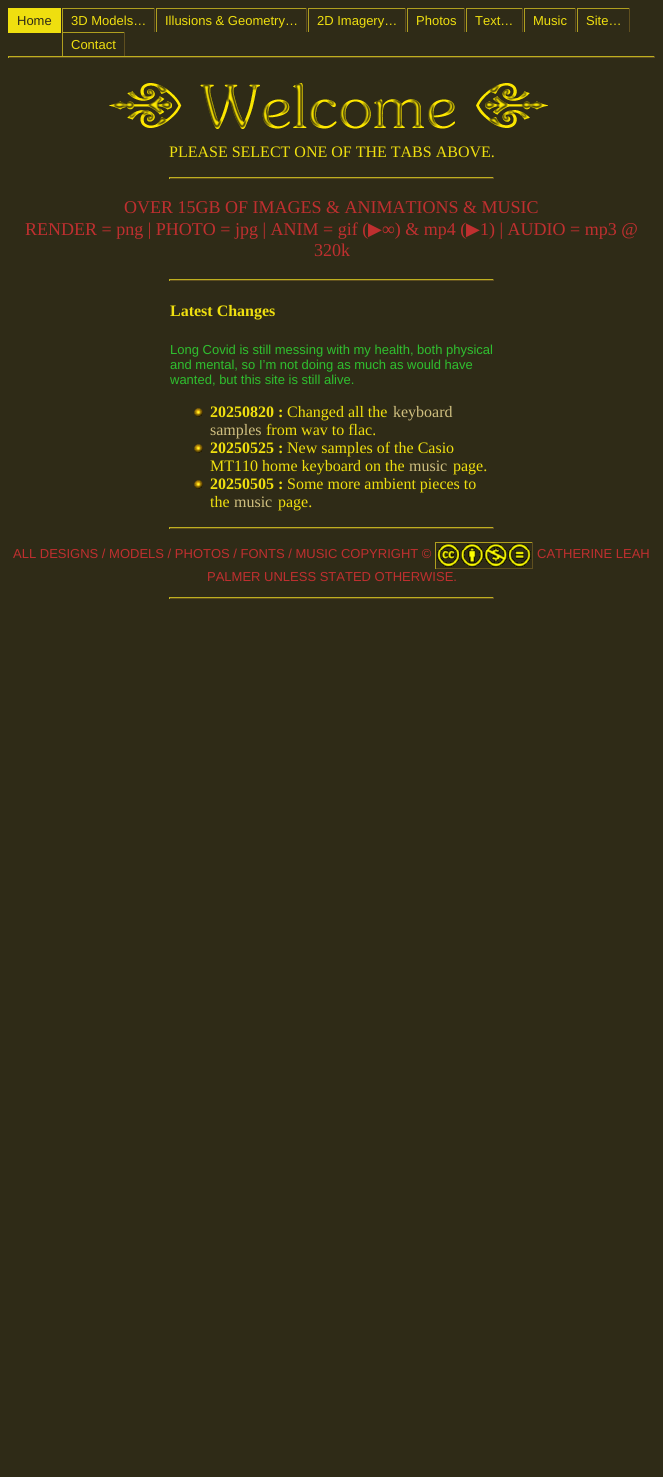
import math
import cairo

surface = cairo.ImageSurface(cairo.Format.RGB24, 663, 1477)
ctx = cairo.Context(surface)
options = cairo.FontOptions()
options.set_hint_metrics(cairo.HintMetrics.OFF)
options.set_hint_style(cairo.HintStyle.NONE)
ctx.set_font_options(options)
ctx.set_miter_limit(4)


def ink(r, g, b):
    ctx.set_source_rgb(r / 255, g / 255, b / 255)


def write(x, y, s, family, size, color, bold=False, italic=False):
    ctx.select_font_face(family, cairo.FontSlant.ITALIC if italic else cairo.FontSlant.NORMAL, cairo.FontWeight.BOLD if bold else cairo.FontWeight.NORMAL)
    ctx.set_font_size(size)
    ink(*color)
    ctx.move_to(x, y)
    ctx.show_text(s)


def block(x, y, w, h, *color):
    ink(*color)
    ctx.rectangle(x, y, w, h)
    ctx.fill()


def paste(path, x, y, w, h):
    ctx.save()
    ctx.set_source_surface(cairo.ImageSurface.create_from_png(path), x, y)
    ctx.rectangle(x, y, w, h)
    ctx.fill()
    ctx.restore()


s1 = dict(family="Liberation Sans", size=13, color=(47, 43, 23))
s2 = dict(family="Liberation Sans", size=13, color=(239, 223, 15))
s3 = dict(family="Liberation Serif", size=16, color=(239, 223, 15))
s4 = dict(family="Liberation Serif", size=18, color=(191, 47, 47))
s5 = dict(family="DejaVu Sans", size=18, color=(191, 47, 47))
s6 = dict(family="Liberation Serif", size=16, color=(239, 223, 15), bold=True)
s7 = dict(family="Liberation Sans", size=13, color=(47, 191, 47))
s8 = dict(family="Liberation Serif", size=16, color=(207, 191, 127))
s9 = dict(family="Liberation Sans", size=13, color=(191, 47, 47))

ink(47, 43, 23)
ctx.paint()
block(8, 8, 53, 25, 239, 223, 15)
write(17, 25, "Home", **s1)
block(62, 8, 93, 1, 175, 159, 31)
block(154, 8, 1, 24, 95, 79, 31)
block(62, 8, 1, 24, 175, 159, 31)
write(71, 25, "3D Models…", **s2)
block(156, 8, 151, 1, 175, 159, 31)
block(306, 8, 1, 24, 95, 79, 31)
block(156, 8, 1, 24, 175, 159, 31)
write(165, 25, "Illusions & Geometry…", **s2)
block(308, 8, 98, 1, 175, 159, 31)
block(405, 8, 1, 24, 95, 79, 31)
block(308, 8, 1, 24, 175, 159, 31)
write(317, 25, "2D Imagery…", **s2)
block(407, 8, 58, 1, 175, 159, 31)
block(464, 8, 1, 24, 95, 79, 31)
block(407, 8, 1, 24, 175, 159, 31)
write(416, 25, "Photos", **s2)
block(466, 8, 57, 1, 175, 159, 31)
block(522, 8, 1, 24, 95, 79, 31)
block(466, 8, 1, 24, 175, 159, 31)
write(475, 25, "Text…", **s2)
block(524, 8, 52, 1, 175, 159, 31)
block(575, 8, 1, 24, 95, 79, 31)
block(524, 8, 1, 24, 175, 159, 31)
write(533, 25, "Music", **s2)
block(577, 8, 53, 1, 175, 159, 31)
block(629, 8, 1, 24, 95, 79, 31)
block(577, 8, 1, 24, 175, 159, 31)
write(586, 25, "Site…", **s2)
block(62, 32, 63, 1, 175, 159, 31)
block(124, 32, 1, 24, 95, 79, 31)
block(62, 32, 1, 24, 175, 159, 31)
write(71, 49, "Contact", **s2)
block(8, 56, 647, 1, 191, 175, 31)
block(654, 56, 1, 2, 95, 79, 31)
block(8, 57, 647, 1, 95, 79, 31)
block(8, 56, 1, 2, 191, 175, 31)
paste("pic1.png", 109, 83, 439, 46)
write(169, 157, "PLEASE SELECT ONE OF THE TABS ABOVE.", **s3)
block(169, 177, 325, 1, 191, 175, 31)
block(493, 177, 1, 2, 95, 79, 31)
block(169, 178, 325, 1, 95, 79, 31)
block(169, 177, 1, 2, 191, 175, 31)
write(124, 213, "OVER 15GB OF IMAGES & ANIMATIONS & MUSIC", **s4)
write(25, 235, "RENDER = png | PHOTO = jpg | ANIM = gif (", **s4)
write(368, 235, "▶", **s5)
write(382, 235, "∞) & mp4 (", **s4)
write(466, 235, "▶", **s5)
write(480, 235, "1) | AUDIO = mp3 @", **s4)
write(314, 256, "320k", **s4)
block(169, 279, 325, 1, 191, 175, 31)
block(493, 279, 1, 2, 95, 79, 31)
block(169, 280, 325, 1, 95, 79, 31)
block(169, 279, 1, 2, 191, 175, 31)
write(170, 316, "Latest Changes", **s6)
write(170, 354, "Long Covid is still messing with my health, both physical", **s7)
write(170, 369, "and mental, so I’m not doing as much as would have", **s7)
write(170, 384, "wanted, but this site is still alive.", **s7)
paste("pic2.png", 194, 408, 9, 9)
write(210, 417, "20250820 :", **s6)
write(287, 417, "Changed all the", **s3)
write(393, 417, "keyboard", **s8)
write(210, 435, "samples", **s8)
write(266, 435, "from wav to flac.", **s3)
paste("pic2.png", 194, 444, 9, 9)
write(210, 453, "20250525 :", **s6)
write(287, 453, "New samples of the Casio", **s3)
write(210, 471, "MT110 home keyboard on the", **s3)
write(409, 471, "music", **s8)
write(453, 471, "page.", **s3)
paste("pic2.png", 194, 480, 9, 9)
write(210, 489, "20250505 :", **s6)
write(287, 489, "Some more ambient pieces to", **s3)
write(210, 507, "the", **s3)
write(234, 507, "music", **s8)
write(278, 507, "page.", **s3)
block(169, 527, 325, 1, 191, 175, 31)
block(493, 527, 1, 2, 95, 79, 31)
block(169, 528, 325, 1, 95, 79, 31)
block(169, 527, 1, 2, 191, 175, 31)
block(435, 542, 98, 1, 175, 159, 31)
write(13, 558, "ALL DESIGNS / MODELS / PHOTOS / FONTS / MUSIC COPYRIGHT ©", **s9)
block(532, 542, 1, 27, 95, 79, 31)
block(435, 568, 98, 1, 95, 79, 31)
block(435, 542, 1, 27, 175, 159, 31)
paste("pic3.png", 437, 544, 94, 23)
write(537, 558, "CATHERINE LEAH", **s9)
write(207, 581, "PALMER UNLESS STATED OTHERWISE.", **s9)
block(169, 597, 325, 1, 191, 175, 31)
block(493, 597, 1, 2, 95, 79, 31)
block(169, 598, 325, 1, 95, 79, 31)
block(169, 597, 1, 2, 191, 175, 31)
surface.write_to_png("screenshot.png")
